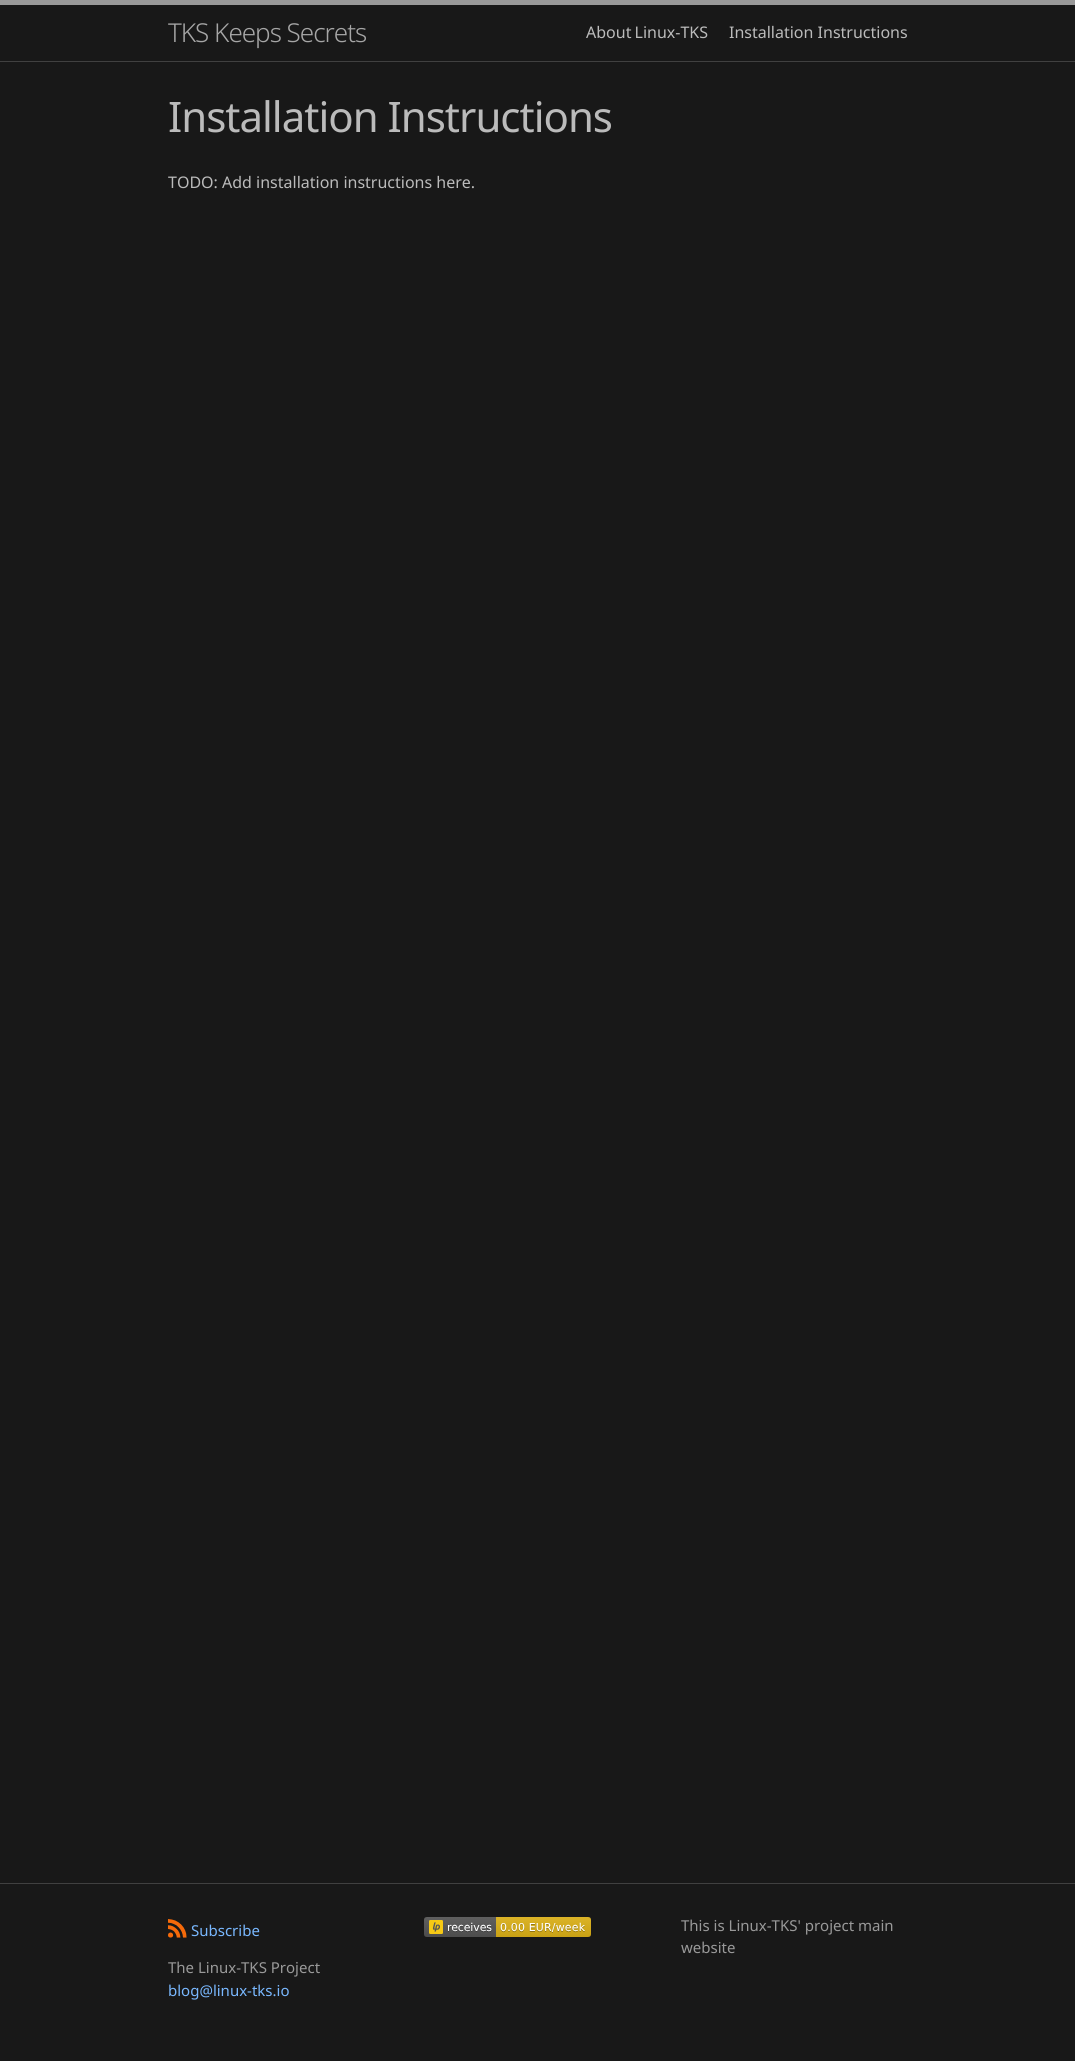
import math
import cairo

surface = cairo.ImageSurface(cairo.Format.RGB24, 1075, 2061)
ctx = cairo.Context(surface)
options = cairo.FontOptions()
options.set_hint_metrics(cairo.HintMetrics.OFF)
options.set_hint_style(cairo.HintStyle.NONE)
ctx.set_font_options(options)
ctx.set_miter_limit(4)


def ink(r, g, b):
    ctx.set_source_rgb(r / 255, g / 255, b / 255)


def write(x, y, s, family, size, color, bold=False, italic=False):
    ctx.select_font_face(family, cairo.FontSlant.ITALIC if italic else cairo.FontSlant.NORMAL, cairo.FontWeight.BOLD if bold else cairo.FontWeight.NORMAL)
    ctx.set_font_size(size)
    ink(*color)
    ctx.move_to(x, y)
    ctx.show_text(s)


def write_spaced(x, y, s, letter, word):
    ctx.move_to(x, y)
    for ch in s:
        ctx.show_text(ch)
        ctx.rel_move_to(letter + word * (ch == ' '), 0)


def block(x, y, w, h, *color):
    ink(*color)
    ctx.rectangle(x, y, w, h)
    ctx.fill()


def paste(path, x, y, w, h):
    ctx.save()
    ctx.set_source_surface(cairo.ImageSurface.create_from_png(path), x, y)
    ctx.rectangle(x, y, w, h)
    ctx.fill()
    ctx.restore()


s1 = dict(family="Noto Sans", size=16, color=(187, 187, 187))
s2 = dict(family="Noto Sans", size=15, color=(121, 184, 255))
s3 = dict(family="Noto Sans", size=15, color=(153, 153, 153))

ink(24, 24, 24)
ctx.paint()
block(0, 0, 1075, 5, 153, 153, 153)
block(0, 61, 1075, 1, 64, 64, 64)
ctx.select_font_face("Noto Sans Light")
ctx.set_font_size(26)
ink(166, 166, 166)
write_spaced(168, 42, "TKS Keeps Secrets", -1, 0)
ctx.select_font_face("Noto Sans")
ctx.set_font_size(16)
ink(187, 187, 187)
write_spaced(586, 38, "About Linux-TKS", 0, -1)
write(729, 38, "Installation Instructions", **s1)
ctx.set_font_size(42)
write_spaced(168, 132, "Installation Instructions", -1, 0)
write(168, 188, "TODO: Add installation instructions here.", **s1)
block(0, 1883, 1075, 1, 64, 64, 64)
paste("pic1.png", 168, 1919, 19, 19)
write(191, 1936, "Subscribe", **s2)
write(168, 1973, "The Linux-TKS Project", **s3)
write(168, 1996, "blog@linux-tks.io", **s2)
paste("pic2.png", 424, 1917, 167, 20)
write(681, 1931, "This is Linux-TKS' project main", **s3)
write(681, 1953, "website", **s3)
surface.write_to_png("screenshot.png")
